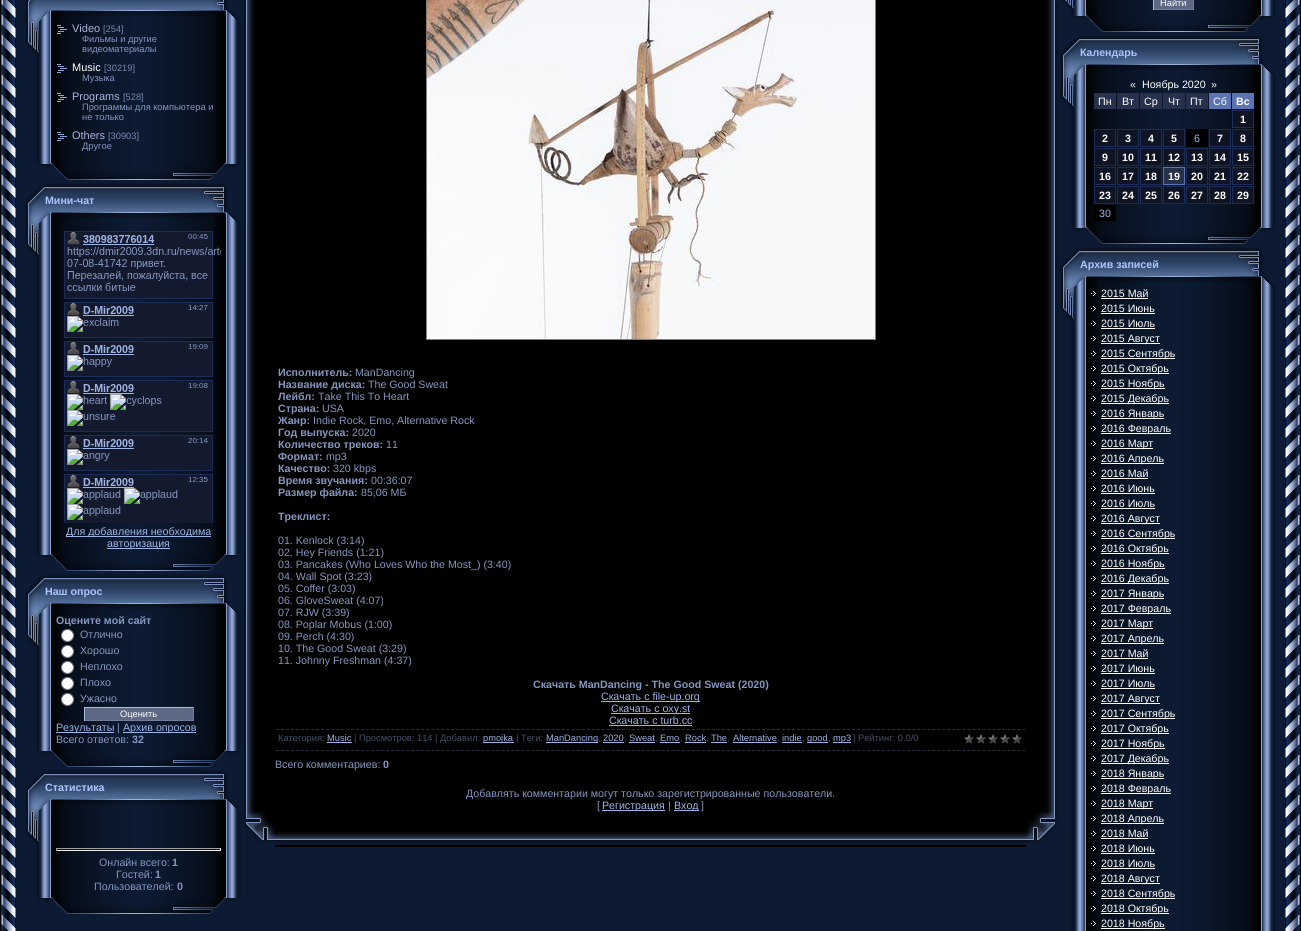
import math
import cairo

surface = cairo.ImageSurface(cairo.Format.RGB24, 1301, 931)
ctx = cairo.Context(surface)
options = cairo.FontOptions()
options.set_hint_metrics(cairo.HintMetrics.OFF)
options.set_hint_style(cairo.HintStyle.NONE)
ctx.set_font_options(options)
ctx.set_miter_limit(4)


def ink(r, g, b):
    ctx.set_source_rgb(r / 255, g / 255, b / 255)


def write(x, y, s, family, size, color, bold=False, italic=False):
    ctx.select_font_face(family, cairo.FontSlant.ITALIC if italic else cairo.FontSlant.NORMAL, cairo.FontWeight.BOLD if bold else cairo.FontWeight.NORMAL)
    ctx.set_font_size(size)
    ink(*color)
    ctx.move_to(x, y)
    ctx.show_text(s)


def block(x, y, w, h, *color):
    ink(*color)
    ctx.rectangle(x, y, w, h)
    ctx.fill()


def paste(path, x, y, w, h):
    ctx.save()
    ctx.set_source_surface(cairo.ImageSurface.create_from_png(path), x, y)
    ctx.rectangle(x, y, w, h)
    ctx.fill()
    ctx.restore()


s1 = dict(family="Liberation Sans", size=11, color=(169, 181, 216))
s2 = dict(family="Liberation Sans", size=9.3, color=(120, 135, 172))
s3 = dict(family="Liberation Sans", size=9.3, color=(133, 150, 191))
s4 = dict(family="Liberation Sans", size=11, color=(255, 255, 255))
s5 = dict(family="Liberation Sans", size=10.65, color=(172, 197, 255), bold=True)
s6 = dict(family="Liberation Sans", size=10.65, color=(159, 180, 229))
s7 = dict(family="Liberation Sans", size=10.65, color=(133, 150, 191), bold=True)
s8 = dict(family="Liberation Sans", size=10.65, color=(133, 150, 191))
s9 = dict(family="Liberation Sans", size=9.3, color=(255, 255, 255))
s10 = dict(family="Liberation Sans", size=9.3, color=(72, 81, 103))
s11 = dict(family="Liberation Sans", size=9.3, color=(159, 180, 229))
s12 = dict(family="Liberation Sans", size=10.65, color=(255, 255, 255))
s13 = dict(family="Liberation Sans", size=10.65, color=(255, 255, 255), bold=True)

ink(12, 27, 51)
ctx.paint()
paste("pic1.png", 0, 0, 16, 931)
paste("pic2.png", 25, 0, 211, 16)
paste("pic3.png", 35, 16, 16, 147)
paste("pic4.png", 25, 16, 19, 39)
paste("pic5.png", 51, 16, 175, 147)
paste("pic6.png", 57, 25, 10, 9)
write(72, 32, "Video", **s1)
write(103, 32, "[254]", **s2)
write(82, 42, "Фильмы и другие", **s3)
write(82, 52, "видеоматериалы", **s3)
paste("pic6.png", 57, 64, 10, 9)
write(72, 71, "Music", **s4)
write(104, 71, "[30219]", **s2)
write(82, 81, "Музыка", **s3)
paste("pic6.png", 57, 93, 10, 9)
write(72, 100, "Programs", **s1)
write(123, 100, "[528]", **s2)
write(82, 110, "Программы для компьютера и", **s3)
write(82, 120, "не только", **s3)
paste("pic6.png", 57, 132, 10, 9)
write(72, 139, "Others", **s1)
write(108, 139, "[30903]", **s2)
write(82, 149, "Другое", **s3)
paste("pic7.png", 226, 16, 15, 147)
paste("pic8.png", 233, 16, 8, 5)
paste("pic9.png", 37, 163, 203, 17)
paste("pic10.png", 25, 183, 211, 35)
write(45, 204, "Мини-чат", **s5)
paste("pic11.png", 35, 218, 16, 336)
paste("pic4.png", 25, 218, 19, 39)
paste("pic12.png", 51, 218, 175, 336)
paste("pic13.png", 64, 231, 157, 292)
block(66, 536, 145, 1, 159, 180, 229)
write(66, 535, "Для добавления необходима", **s6)
block(107, 548, 63, 1, 159, 180, 229)
write(107, 547, "авторизация", **s6)
paste("pic14.png", 226, 218, 15, 336)
paste("pic8.png", 233, 218, 8, 5)
paste("pic9.png", 37, 554, 203, 17)
paste("pic10.png", 25, 574, 211, 35)
write(45, 595, "Наш опрос", **s5)
paste("pic15.png", 35, 609, 16, 141)
paste("pic4.png", 25, 609, 19, 39)
paste("pic16.png", 51, 609, 175, 141)
write(56, 624, "Оцените мой сайт", **s7)
ink(255, 255, 255)
ctx.new_path()
ctx.arc(67.5, 635.5, 6, 0, 2 * math.pi)
ctx.fill_preserve()
ink(118, 118, 118)
ctx.set_line_width(1)
ctx.stroke()
write(80, 638, "Отлично", **s8)
ink(255, 255, 255)
ctx.new_path()
ctx.arc(67.5, 651.5, 6, 0, 2 * math.pi)
ctx.fill_preserve()
ink(118, 118, 118)
ctx.stroke()
write(80, 654, "Хорошо", **s8)
ink(255, 255, 255)
ctx.new_path()
ctx.arc(67.5, 667.5, 6, 0, 2 * math.pi)
ctx.fill_preserve()
ink(118, 118, 118)
ctx.stroke()
write(80, 670, "Неплохо", **s8)
ink(255, 255, 255)
ctx.new_path()
ctx.arc(67.5, 683.5, 6, 0, 2 * math.pi)
ctx.fill_preserve()
ink(118, 118, 118)
ctx.stroke()
write(80, 686, "Плохо", **s8)
ink(255, 255, 255)
ctx.new_path()
ctx.arc(67.5, 699.5, 6, 0, 2 * math.pi)
ctx.fill_preserve()
ink(118, 118, 118)
ctx.stroke()
write(80, 702, "Ужасно", **s8)
block(85, 708, 108, 12, 92, 104, 132)
block(84, 707, 110, 1, 175, 189, 228)
block(193, 707, 1, 14, 117, 126, 152)
block(84, 720, 110, 1, 117, 126, 152)
block(84, 707, 1, 14, 175, 189, 228)
write(120, 717, "Оценить", **s9)
block(56, 732, 58, 1, 159, 180, 229)
write(56, 731, "Результаты", **s6)
write(117, 731, "|", **s8)
block(123, 732, 73, 1, 159, 180, 229)
write(123, 731, "Архив опросов", **s6)
write(56, 743, "Всего ответов:", **s8)
write(132, 743, "32", **s7)
paste("pic17.png", 226, 609, 15, 141)
paste("pic8.png", 233, 609, 8, 5)
paste("pic9.png", 37, 750, 203, 17)
paste("pic10.png", 25, 770, 211, 35)
write(45, 791, "Статистика", **s5)
paste("pic18.png", 35, 805, 16, 92)
paste("pic4.png", 25, 805, 19, 39)
paste("pic19.png", 51, 805, 175, 92)
block(56, 848, 165, 1, 159, 159, 159)
block(220, 848, 1, 3, 238, 238, 238)
block(56, 850, 165, 1, 238, 238, 238)
block(56, 848, 1, 3, 159, 159, 159)
write(99, 866, "Онлайн всего:", **s8)
write(172, 866, "1", **s7)
write(116, 878, "Гостей:", **s8)
write(155, 878, "1", **s7)
write(94, 890, "Пользователей:", **s8)
write(177, 890, "0", **s7)
paste("pic20.png", 226, 805, 15, 92)
paste("pic8.png", 233, 805, 8, 5)
paste("pic9.png", 37, 897, 203, 17)
paste("pic21.png", 242, 0, 33, 811)
block(275, 0, 751, 811, 0, 0, 0)
paste("pic22.png", 426, 0, 450, 340)
write(278, 376, "Исполнитель:", **s7)
write(355, 376, "ManDancing", **s8)
write(278, 388, "Название диска:", **s7)
write(368, 388, "The Good Sweat", **s8)
write(278, 400, "Лейбл:", **s7)
write(318, 400, "Take This To Heart", **s8)
write(278, 412, "Страна:", **s7)
write(322, 412, "USA", **s8)
write(278, 424, "Жанр:", **s7)
write(313, 424, "Indie Rock, Emo, Alternative Rock", **s8)
write(278, 436, "Год выпуска:", **s7)
write(352, 436, "2020", **s8)
write(278, 448, "Количество треков:", **s7)
write(386, 448, "11", **s8)
write(278, 460, "Формат:", **s7)
write(326, 460, "mp3", **s8)
write(278, 472, "Качество:", **s7)
write(333, 472, "320 kbps", **s8)
write(278, 484, "Время звучания:", **s7)
write(371, 484, "00:36:07", **s8)
write(278, 496, "Размер файла:", **s7)
write(361, 496, "85,06 МБ", **s8)
write(278, 520, "Треклист:", **s7)
write(278, 544, "01. Kenlock (3:14)", **s8)
write(278, 556, "02. Hey Friends (1:21)", **s8)
write(278, 568, "03. Pancakes (Who Loves Who the Most_) (3:40)", **s8)
write(278, 580, "04. Wall Spot (3:23)", **s8)
write(278, 592, "05. Coffer (3:03)", **s8)
write(278, 604, "06. GloveSweat (4:07)", **s8)
write(278, 616, "07. RJW (3:39)", **s8)
write(278, 628, "08. Poplar Mobus (1:00)", **s8)
write(278, 640, "09. Perch (4:30)", **s8)
write(278, 652, "10. The Good Sweat (3:29)", **s8)
write(278, 664, "11. Johnny Freshman (4:37)", **s8)
write(533, 688, "Скачать ManDancing - The Good Sweat (2020)", **s7)
block(601, 701, 99, 1, 159, 180, 229)
write(601, 700, "Скачать с file-up.org", **s6)
block(611, 713, 79, 1, 159, 180, 229)
write(611, 712, "Скачать с oxy.st", **s6)
write(609, 724, "Скачать с turb.cc", **s6)
block(609, 725, 83, 1, 159, 180, 229)
ctx.new_path()
ctx.move_to(276, 729.5)
ctx.line_to(1025, 729.5)
ink(41, 46, 59)
ctx.set_dash([3, 2.01])
ctx.stroke()
ctx.new_path()
ctx.move_to(276, 750.5)
ctx.line_to(1025, 750.5)
ctx.stroke()
write(278, 741, "Категория:", **s10)
write(327, 741, "Music", **s11)
block(327, 742, 25, 1, 159, 180, 229)
write(354, 741, "| Просмотров: 114 | Добавил:", **s10)
block(483, 742, 31, 1, 159, 180, 229)
write(483, 741, "pmojka", **s11)
write(516, 741, "| Теги:", **s10)
block(546, 742, 52, 1, 159, 180, 229)
write(546, 741, "ManDancing", **s11)
write(598, 741, ",", **s10)
write(603, 741, "2020", **s11)
write(624, 741, ",", **s10)
block(603, 742, 21, 1, 159, 180, 229)
write(629, 741, "Sweat", **s11)
write(655, 741, ",", **s10)
block(629, 742, 26, 1, 159, 180, 229)
write(660, 741, "Emo", **s11)
write(680, 741, ",", **s10)
block(660, 742, 20, 1, 159, 180, 229)
write(685, 741, "Rock", **s11)
write(711, 741, "The", **s11)
write(733, 741, "Alternative", **s11)
write(782, 741, "indie", **s11)
block(807, 742, 21, 1, 159, 180, 229)
write(807, 741, "good", **s11)
block(833, 742, 18, 1, 159, 180, 229)
write(833, 741, "mp3", **s11)
write(853, 741, "| Рейтинг: 0.0/0", **s10)
paste("pic23.png", 964, 734, 59, 10)
write(706, 741, ",", **s10)
block(685, 742, 21, 1, 159, 180, 229)
write(727, 741, ",", **s10)
block(711, 742, 16, 1, 159, 180, 229)
write(777, 741, ",", **s10)
block(733, 742, 44, 1, 159, 180, 229)
write(802, 741, ",", **s10)
block(782, 742, 20, 1, 159, 180, 229)
write(828, 741, ",", **s10)
write(275, 768, "Всего комментариев:", **s8)
write(383, 768, "0", **s7)
write(466, 797, "Добавлять комментарии могут только зарегистрированные пользователи.", **s8)
paste("pic26.png", 275, 811, 751, 36)
write(597, 809, "[", **s8)
block(602, 810, 63, 1, 159, 180, 229)
write(602, 809, "Регистрация", **s6)
write(668, 809, "|", **s8)
block(674, 810, 25, 1, 159, 180, 229)
write(674, 809, "Вход", **s6)
write(701, 809, "]", **s8)
paste("pic24.png", 1026, 0, 33, 811)
paste("pic25.png", 242, 811, 33, 33)
paste("pic27.png", 1026, 811, 33, 33)
paste("pic28.png", 1070, 0, 16, 15)
paste("pic29.png", 1061, 0, 13, 11)
paste("pic30.png", 1086, 0, 175, 15)
block(1154, 0, 39, 9, 92, 104, 132)
block(1193, 0, 1, 10, 117, 126, 152)
block(1153, 9, 41, 1, 117, 126, 152)
block(1153, 0, 1, 10, 175, 189, 228)
write(1160, 6, "Найти", **s9)
paste("pic31.png", 1261, 0, 15, 15)
paste("pic9.png", 1072, 15, 203, 17)
paste("pic10.png", 1060, 35, 211, 35)
write(1080, 56, "Календарь", **s5)
paste("pic32.png", 1070, 70, 16, 157)
paste("pic4.png", 1060, 70, 19, 39)
paste("pic33.png", 1086, 70, 175, 157)
write(1130, 88, "«", **s12)
write(1142, 88, "Ноябрь 2020", **s12)
write(1211, 88, "»", **s12)
block(1094, 93, 22, 16, 39, 49, 75)
write(1098, 105, "Пн", **s12)
block(1117, 93, 22, 16, 39, 49, 75)
write(1122, 105, "Вт", **s12)
block(1140, 93, 22, 16, 39, 49, 75)
write(1144, 105, "Ср", **s12)
block(1163, 93, 22, 16, 39, 49, 75)
write(1168, 105, "Чт", **s12)
block(1186, 93, 22, 16, 39, 49, 75)
write(1190, 105, "Пт", **s12)
block(1209, 93, 22, 16, 93, 116, 178)
write(1213, 105, "Сб", **s12)
block(1232, 93, 22, 16, 93, 116, 178)
write(1236, 105, "Вс", **s13)
ink(15, 20, 36)
ctx.rectangle(1232.5, 110.5, 21, 17)
ctx.fill_preserve()
ink(29, 44, 87)
ctx.set_dash([])
ctx.stroke()
write(1240, 123, "1", **s13)
ink(15, 20, 36)
ctx.rectangle(1094.5, 129.5, 21, 17)
ctx.fill_preserve()
ink(29, 44, 87)
ctx.stroke()
write(1102, 142, "2", **s13)
ink(15, 20, 36)
ctx.rectangle(1117.5, 129.5, 21, 17)
ctx.fill_preserve()
ink(29, 44, 87)
ctx.stroke()
write(1125, 142, "3", **s13)
ink(15, 20, 36)
ctx.rectangle(1140.5, 129.5, 21, 17)
ctx.fill_preserve()
ink(29, 44, 87)
ctx.stroke()
write(1148, 142, "4", **s13)
ink(15, 20, 36)
ctx.rectangle(1163.5, 129.5, 21, 17)
ctx.fill_preserve()
ink(29, 44, 87)
ctx.stroke()
write(1171, 142, "5", **s13)
block(1186, 129, 22, 18, 0, 0, 0)
write(1194, 142, "6", **s6)
ink(15, 20, 36)
ctx.rectangle(1209.5, 129.5, 21, 17)
ctx.fill_preserve()
ink(29, 44, 87)
ctx.stroke()
write(1217, 142, "7", **s13)
ink(15, 20, 36)
ctx.rectangle(1232.5, 129.5, 21, 17)
ctx.fill_preserve()
ink(29, 44, 87)
ctx.stroke()
write(1240, 142, "8", **s13)
ink(15, 20, 36)
ctx.rectangle(1094.5, 148.5, 21, 17)
ctx.fill_preserve()
ink(29, 44, 87)
ctx.stroke()
write(1102, 161, "9", **s13)
ink(15, 20, 36)
ctx.rectangle(1117.5, 148.5, 21, 17)
ctx.fill_preserve()
ink(29, 44, 87)
ctx.stroke()
write(1122, 161, "10", **s13)
ink(15, 20, 36)
ctx.rectangle(1140.5, 148.5, 21, 17)
ctx.fill_preserve()
ink(29, 44, 87)
ctx.stroke()
write(1145, 161, "11", **s13)
ink(15, 20, 36)
ctx.rectangle(1163.5, 148.5, 21, 17)
ctx.fill_preserve()
ink(29, 44, 87)
ctx.stroke()
write(1168, 161, "12", **s13)
ink(15, 20, 36)
ctx.rectangle(1186.5, 148.5, 21, 17)
ctx.fill_preserve()
ink(29, 44, 87)
ctx.stroke()
write(1191, 161, "13", **s13)
ink(15, 20, 36)
ctx.rectangle(1209.5, 148.5, 21, 17)
ctx.fill_preserve()
ink(29, 44, 87)
ctx.stroke()
write(1214, 161, "14", **s13)
ink(15, 20, 36)
ctx.rectangle(1232.5, 148.5, 21, 17)
ctx.fill_preserve()
ink(29, 44, 87)
ctx.stroke()
write(1237, 161, "15", **s13)
ink(15, 20, 36)
ctx.rectangle(1094.5, 167.5, 21, 17)
ctx.fill_preserve()
ink(29, 44, 87)
ctx.stroke()
write(1099, 180, "16", **s13)
ink(15, 20, 36)
ctx.rectangle(1117.5, 167.5, 21, 17)
ctx.fill_preserve()
ink(29, 44, 87)
ctx.stroke()
write(1122, 180, "17", **s13)
ink(15, 20, 36)
ctx.rectangle(1140.5, 167.5, 21, 17)
ctx.fill_preserve()
ink(29, 44, 87)
ctx.stroke()
write(1145, 180, "18", **s13)
ink(39, 49, 75)
ctx.rectangle(1163.5, 167.5, 21, 17)
ctx.fill_preserve()
ink(93, 116, 178)
ctx.stroke()
write(1168, 180, "19", **s13)
ink(15, 20, 36)
ctx.rectangle(1186.5, 167.5, 21, 17)
ctx.fill_preserve()
ink(29, 44, 87)
ctx.stroke()
write(1191, 180, "20", **s13)
ink(15, 20, 36)
ctx.rectangle(1209.5, 167.5, 21, 17)
ctx.fill_preserve()
ink(29, 44, 87)
ctx.stroke()
write(1214, 180, "21", **s13)
ink(15, 20, 36)
ctx.rectangle(1232.5, 167.5, 21, 17)
ctx.fill_preserve()
ink(29, 44, 87)
ctx.stroke()
write(1237, 180, "22", **s13)
ink(15, 20, 36)
ctx.rectangle(1094.5, 186.5, 21, 17)
ctx.fill_preserve()
ink(29, 44, 87)
ctx.stroke()
write(1099, 199, "23", **s13)
ink(15, 20, 36)
ctx.rectangle(1117.5, 186.5, 21, 17)
ctx.fill_preserve()
ink(29, 44, 87)
ctx.stroke()
write(1122, 199, "24", **s13)
ink(15, 20, 36)
ctx.rectangle(1140.5, 186.5, 21, 17)
ctx.fill_preserve()
ink(29, 44, 87)
ctx.stroke()
write(1145, 199, "25", **s13)
ink(15, 20, 36)
ctx.rectangle(1163.5, 186.5, 21, 17)
ctx.fill_preserve()
ink(29, 44, 87)
ctx.stroke()
write(1168, 199, "26", **s13)
ink(15, 20, 36)
ctx.rectangle(1186.5, 186.5, 21, 17)
ctx.fill_preserve()
ink(29, 44, 87)
ctx.stroke()
write(1191, 199, "27", **s13)
ink(15, 20, 36)
ctx.rectangle(1209.5, 186.5, 21, 17)
ctx.fill_preserve()
ink(29, 44, 87)
ctx.stroke()
write(1214, 199, "28", **s13)
ink(15, 20, 36)
ctx.rectangle(1232.5, 186.5, 21, 17)
ctx.fill_preserve()
ink(29, 44, 87)
ctx.stroke()
write(1237, 199, "29", **s13)
block(1094, 205, 22, 16, 0, 0, 0)
write(1099, 217, "30", **s6)
paste("pic34.png", 1261, 70, 15, 157)
paste("pic8.png", 1268, 70, 8, 5)
paste("pic9.png", 1072, 227, 203, 17)
paste("pic10.png", 1060, 247, 211, 35)
write(1080, 268, "Архив записей", **s5)
paste("pic35.png", 1070, 282, 16, 649)
paste("pic4.png", 1060, 282, 19, 39)
paste("pic36.png", 1086, 282, 175, 649)
paste("pic37.png", 1091, 291, 5, 5)
write(1101, 297, "2015 Май", **s12)
block(1101, 298, 47, 1, 255, 255, 255)
paste("pic37.png", 1091, 306, 5, 5)
write(1101, 312, "2015 Июнь", **s12)
block(1101, 313, 54, 1, 255, 255, 255)
paste("pic37.png", 1091, 321, 5, 5)
write(1101, 327, "2015 Июль", **s12)
block(1101, 328, 54, 1, 255, 255, 255)
paste("pic37.png", 1091, 336, 5, 5)
block(1101, 343, 59, 1, 255, 255, 255)
write(1101, 342, "2015 Август", **s12)
paste("pic37.png", 1091, 351, 5, 5)
block(1101, 358, 74, 1, 255, 255, 255)
write(1101, 357, "2015 Сентябрь", **s12)
paste("pic37.png", 1091, 366, 5, 5)
block(1101, 373, 68, 1, 255, 255, 255)
write(1101, 372, "2015 Октябрь", **s12)
paste("pic37.png", 1091, 381, 5, 5)
block(1101, 388, 64, 1, 255, 255, 255)
write(1101, 387, "2015 Ноябрь", **s12)
paste("pic37.png", 1091, 396, 5, 5)
block(1101, 403, 68, 1, 255, 255, 255)
write(1101, 402, "2015 Декабрь", **s12)
paste("pic37.png", 1091, 411, 5, 5)
block(1101, 418, 63, 1, 255, 255, 255)
write(1101, 417, "2016 Январь", **s12)
paste("pic37.png", 1091, 426, 5, 5)
block(1101, 433, 70, 1, 255, 255, 255)
write(1101, 432, "2016 Февраль", **s12)
paste("pic37.png", 1091, 441, 5, 5)
block(1101, 448, 52, 1, 255, 255, 255)
write(1101, 447, "2016 Март", **s12)
paste("pic37.png", 1091, 456, 5, 5)
block(1101, 463, 63, 1, 255, 255, 255)
write(1101, 462, "2016 Апрель", **s12)
paste("pic37.png", 1091, 471, 5, 5)
write(1101, 477, "2016 Май", **s12)
block(1101, 478, 47, 1, 255, 255, 255)
paste("pic37.png", 1091, 486, 5, 5)
write(1101, 492, "2016 Июнь", **s12)
block(1101, 493, 54, 1, 255, 255, 255)
paste("pic37.png", 1091, 501, 5, 5)
write(1101, 507, "2016 Июль", **s12)
block(1101, 508, 54, 1, 255, 255, 255)
paste("pic37.png", 1091, 516, 5, 5)
block(1101, 523, 59, 1, 255, 255, 255)
write(1101, 522, "2016 Август", **s12)
paste("pic37.png", 1091, 531, 5, 5)
block(1101, 538, 74, 1, 255, 255, 255)
write(1101, 537, "2016 Сентябрь", **s12)
paste("pic37.png", 1091, 546, 5, 5)
block(1101, 553, 68, 1, 255, 255, 255)
write(1101, 552, "2016 Октябрь", **s12)
paste("pic37.png", 1091, 561, 5, 5)
block(1101, 568, 64, 1, 255, 255, 255)
write(1101, 567, "2016 Ноябрь", **s12)
paste("pic37.png", 1091, 576, 5, 5)
block(1101, 583, 68, 1, 255, 255, 255)
write(1101, 582, "2016 Декабрь", **s12)
paste("pic37.png", 1091, 591, 5, 5)
block(1101, 598, 63, 1, 255, 255, 255)
write(1101, 597, "2017 Январь", **s12)
paste("pic37.png", 1091, 606, 5, 5)
block(1101, 613, 70, 1, 255, 255, 255)
write(1101, 612, "2017 Февраль", **s12)
paste("pic37.png", 1091, 621, 5, 5)
block(1101, 628, 52, 1, 255, 255, 255)
write(1101, 627, "2017 Март", **s12)
paste("pic37.png", 1091, 636, 5, 5)
block(1101, 643, 63, 1, 255, 255, 255)
write(1101, 642, "2017 Апрель", **s12)
paste("pic37.png", 1091, 651, 5, 5)
write(1101, 657, "2017 Май", **s12)
block(1101, 658, 47, 1, 255, 255, 255)
paste("pic37.png", 1091, 666, 5, 5)
write(1101, 672, "2017 Июнь", **s12)
block(1101, 673, 54, 1, 255, 255, 255)
paste("pic37.png", 1091, 681, 5, 5)
write(1101, 687, "2017 Июль", **s12)
block(1101, 688, 54, 1, 255, 255, 255)
paste("pic37.png", 1091, 696, 5, 5)
block(1101, 703, 59, 1, 255, 255, 255)
write(1101, 702, "2017 Август", **s12)
paste("pic37.png", 1091, 711, 5, 5)
block(1101, 718, 74, 1, 255, 255, 255)
write(1101, 717, "2017 Сентябрь", **s12)
paste("pic37.png", 1091, 726, 5, 5)
block(1101, 733, 68, 1, 255, 255, 255)
write(1101, 732, "2017 Октябрь", **s12)
paste("pic37.png", 1091, 741, 5, 5)
block(1101, 748, 64, 1, 255, 255, 255)
write(1101, 747, "2017 Ноябрь", **s12)
paste("pic37.png", 1091, 756, 5, 5)
block(1101, 763, 68, 1, 255, 255, 255)
write(1101, 762, "2017 Декабрь", **s12)
paste("pic37.png", 1091, 771, 5, 5)
block(1101, 778, 63, 1, 255, 255, 255)
write(1101, 777, "2018 Январь", **s12)
paste("pic37.png", 1091, 786, 5, 5)
block(1101, 793, 70, 1, 255, 255, 255)
write(1101, 792, "2018 Февраль", **s12)
paste("pic37.png", 1091, 801, 5, 5)
block(1101, 808, 52, 1, 255, 255, 255)
write(1101, 807, "2018 Март", **s12)
paste("pic37.png", 1091, 816, 5, 5)
block(1101, 823, 63, 1, 255, 255, 255)
write(1101, 822, "2018 Апрель", **s12)
paste("pic37.png", 1091, 831, 5, 5)
write(1101, 837, "2018 Май", **s12)
block(1101, 838, 47, 1, 255, 255, 255)
paste("pic37.png", 1091, 846, 5, 5)
write(1101, 852, "2018 Июнь", **s12)
block(1101, 853, 54, 1, 255, 255, 255)
paste("pic37.png", 1091, 861, 5, 5)
write(1101, 867, "2018 Июль", **s12)
block(1101, 868, 54, 1, 255, 255, 255)
paste("pic37.png", 1091, 876, 5, 5)
block(1101, 883, 59, 1, 255, 255, 255)
write(1101, 882, "2018 Август", **s12)
paste("pic37.png", 1091, 891, 5, 5)
block(1101, 898, 74, 1, 255, 255, 255)
write(1101, 897, "2018 Сентябрь", **s12)
paste("pic37.png", 1091, 906, 5, 5)
block(1101, 913, 68, 1, 255, 255, 255)
write(1101, 912, "2018 Октябрь", **s12)
paste("pic37.png", 1091, 921, 5, 5)
block(1101, 928, 64, 1, 255, 255, 255)
write(1101, 927, "2018 Ноябрь", **s12)
paste("pic38.png", 1261, 282, 15, 649)
paste("pic8.png", 1268, 282, 8, 5)
paste("pic39.png", 1285, 0, 16, 931)
surface.write_to_png("screenshot.png")
